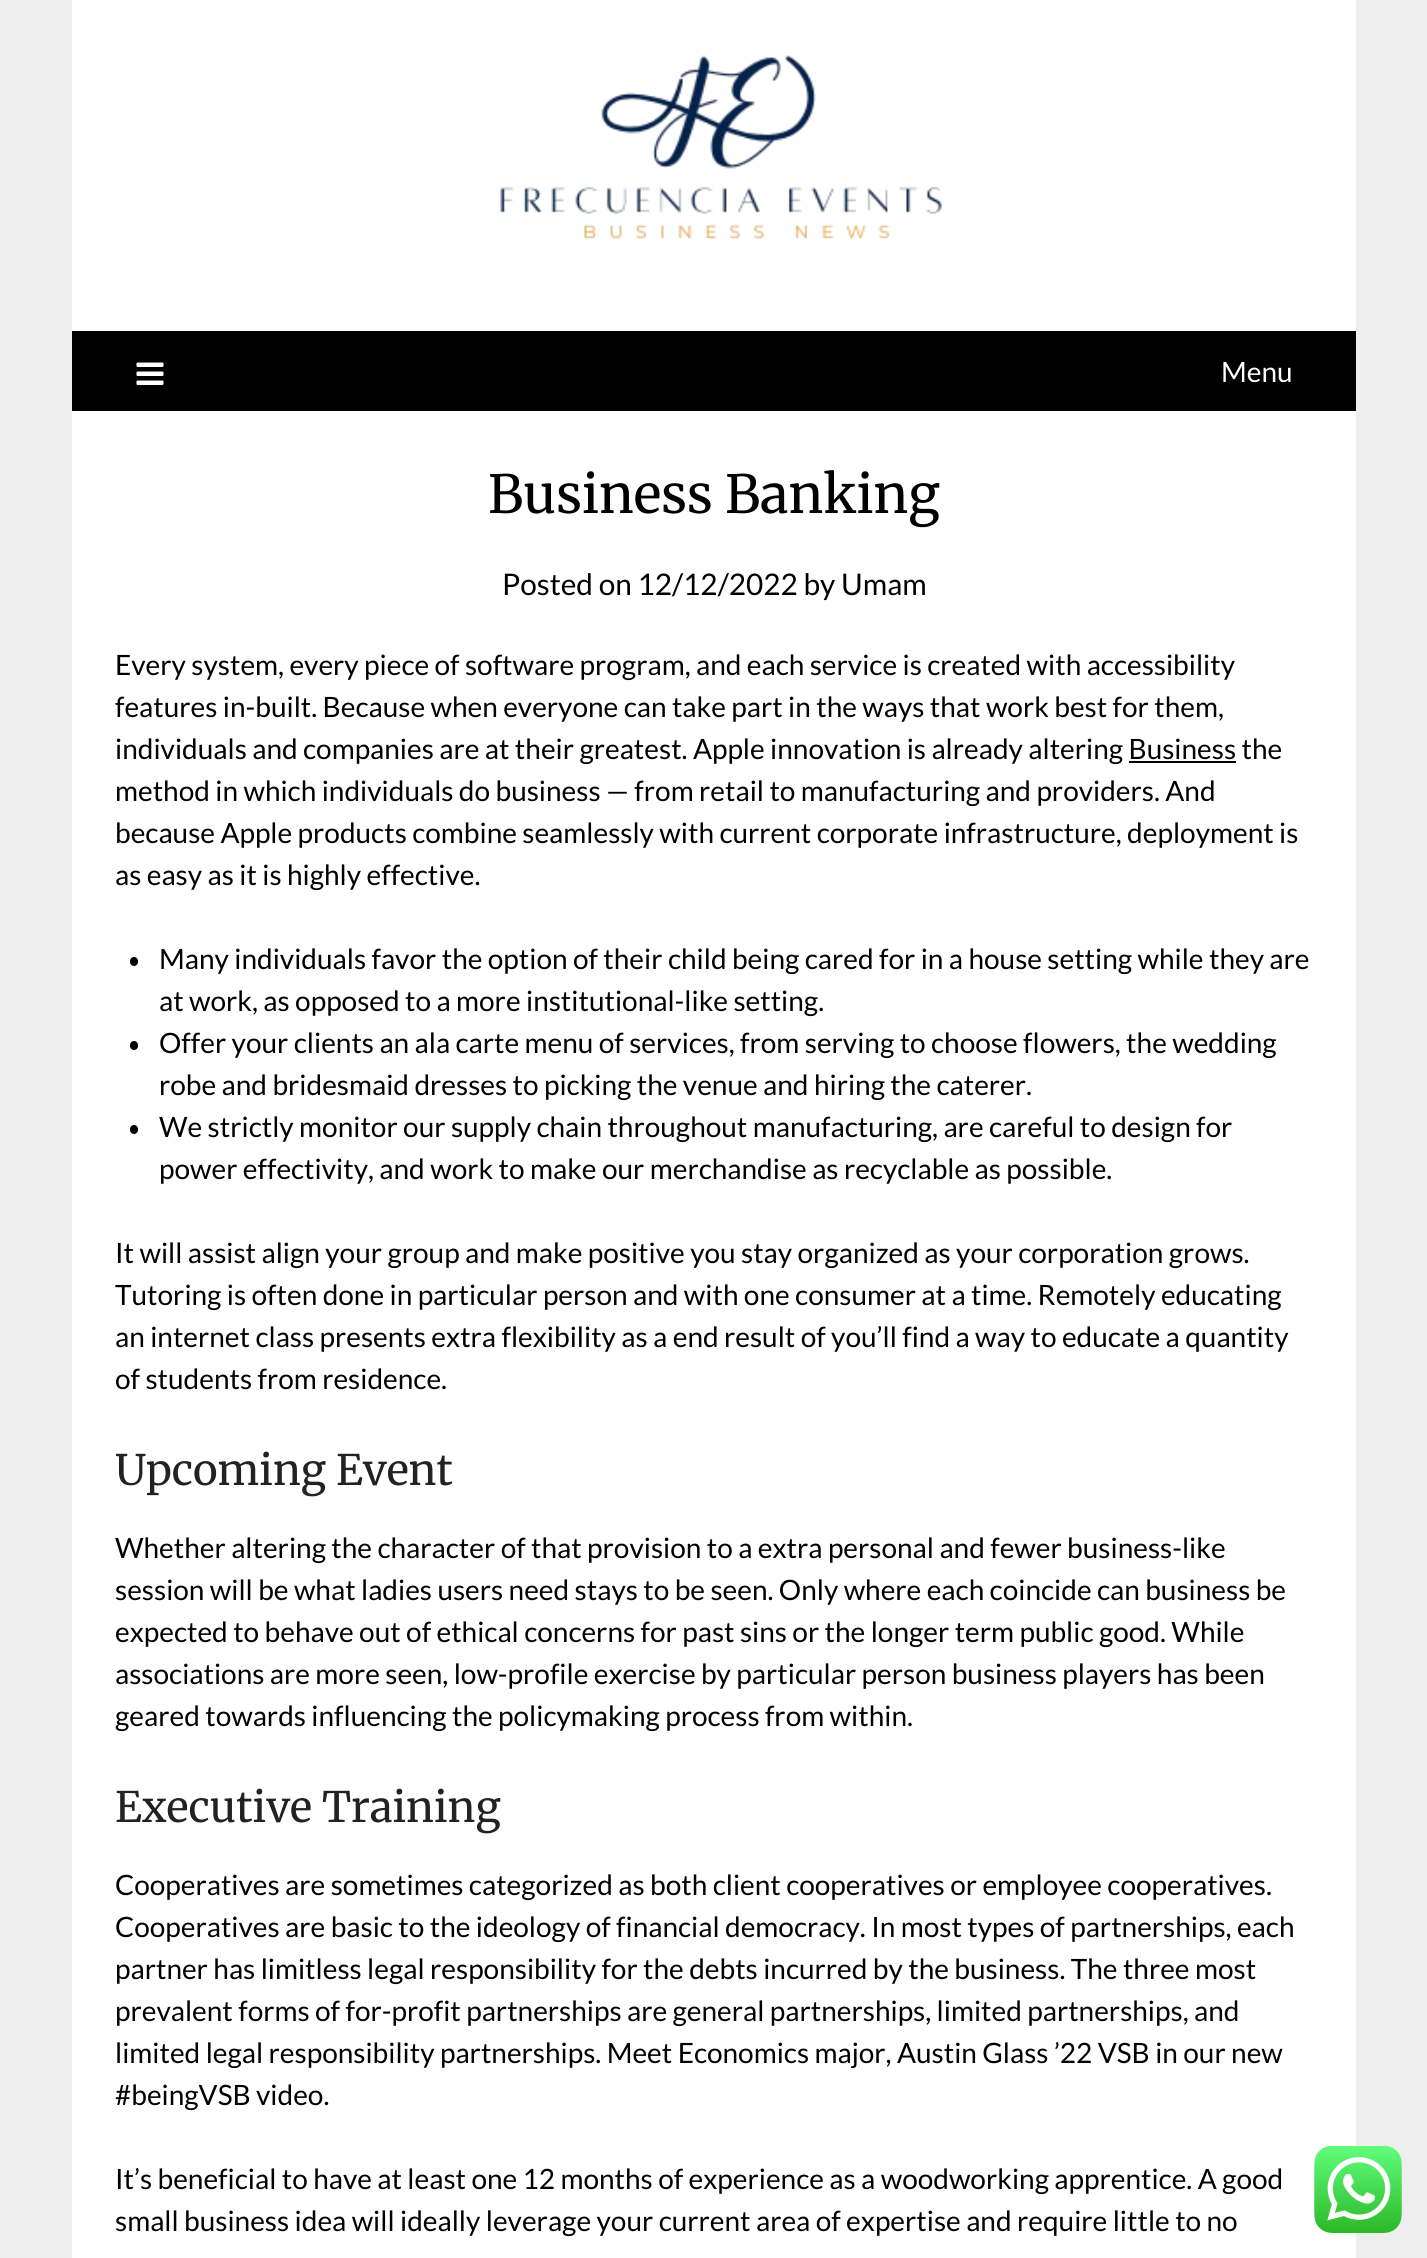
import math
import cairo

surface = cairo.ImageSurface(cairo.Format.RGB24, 1427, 2258)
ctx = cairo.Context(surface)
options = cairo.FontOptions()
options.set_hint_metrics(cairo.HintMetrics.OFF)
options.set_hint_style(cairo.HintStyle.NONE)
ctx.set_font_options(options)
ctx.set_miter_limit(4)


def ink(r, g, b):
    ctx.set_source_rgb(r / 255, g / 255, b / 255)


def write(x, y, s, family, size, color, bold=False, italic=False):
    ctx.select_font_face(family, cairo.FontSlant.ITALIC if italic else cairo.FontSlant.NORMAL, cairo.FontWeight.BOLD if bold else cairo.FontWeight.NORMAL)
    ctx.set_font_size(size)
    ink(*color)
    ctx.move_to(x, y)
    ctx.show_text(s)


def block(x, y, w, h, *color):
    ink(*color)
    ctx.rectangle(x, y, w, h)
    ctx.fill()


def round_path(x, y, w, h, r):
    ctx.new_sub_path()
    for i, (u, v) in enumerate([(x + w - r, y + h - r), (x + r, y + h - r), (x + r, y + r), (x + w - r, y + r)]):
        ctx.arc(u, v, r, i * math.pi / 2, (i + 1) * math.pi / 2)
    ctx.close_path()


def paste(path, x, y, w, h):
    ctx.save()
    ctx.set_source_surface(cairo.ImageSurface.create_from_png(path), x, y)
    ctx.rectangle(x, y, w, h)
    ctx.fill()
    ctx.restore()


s1 = dict(family="Lato", size=28, color=(255, 255, 255))
s2 = dict(family="Merriweather", size=52.5, color=(0, 0, 0))
s3 = dict(family="Lato", size=29.75, color=(0, 0, 0))
s4 = dict(family="Lato", size=28, color=(0, 0, 0))
s5 = dict(family="Merriweather", size=42, color=(34, 34, 34))

ink(238, 238, 238)
ctx.paint()
block(72, 0, 1284, 331, 255, 255, 255)
paste("pic1.png", 500, 55, 442, 184)
block(72, 331, 1284, 80, 0, 0, 0)
paste("pic2.png", 136, 362, 28, 23)
write(1221, 382, "Menu", **s1)
block(72, 411, 1284, 1847, 255, 255, 255)
write(488, 513, "Business Banking", **s2)
write(502, 595, "Posted on 12/12/2022 by Umam", **s3)
write(115, 675, "Every system, every piece of software program, and each service is created with accessibility", **s4)
write(115, 717, "features in-built. Because when everyone can take part in the ways that work best for them,", **s4)
write(115, 759, "individuals and companies are at their greatest. Apple innovation is already altering Business the", **s4)
block(1129, 761, 107, 2, 0, 0, 0)
write(115, 801, "method in which individuals do business — from retail to manufacturing and providers. And", **s4)
write(115, 843, "because Apple products combine seamlessly with current corporate infrastructure, deployment is", **s4)
write(115, 885, "as easy as it is highly effective.", **s4)
round_path(130, 957, 8, 9, 4)
ctx.fill()
write(159, 969, "Many individuals favor the option of their child being cared for in a house setting while they are", **s4)
write(159, 1011, "at work, as opposed to a more institutional-like setting.", **s4)
round_path(130, 1041, 8, 9, 4)
ctx.fill()
write(159, 1053, "Offer your clients an ala carte menu of services, from serving to choose flowers, the wedding", **s4)
write(159, 1095, "robe and bridesmaid dresses to picking the venue and hiring the caterer.", **s4)
round_path(130, 1125, 8, 9, 4)
ctx.fill()
write(159, 1137, "We strictly monitor our supply chain throughout manufacturing, are careful to design for", **s4)
write(159, 1179, "power effectivity, and work to make our merchandise as recyclable as possible.", **s4)
write(115, 1263, "It will assist align your group and make positive you stay organized as your corporation grows.", **s4)
write(115, 1305, "Tutoring is often done in particular person and with one consumer at a time. Remotely educating", **s4)
write(115, 1347, "an internet class presents extra flexibility as a end result of you’ll find a way to educate a quantity", **s4)
write(115, 1389, "of students from residence.", **s4)
write(115, 1485, "Upcoming Event", **s5)
write(115, 1558, "Whether altering the character of that provision to a extra personal and fewer business-like", **s4)
write(115, 1600, "session will be what ladies users need stays to be seen. Only where each coincide can business be", **s4)
write(115, 1642, "expected to behave out of ethical concerns for past sins or the longer term public good. While", **s4)
write(115, 1684, "associations are more seen, low-profile exercise by particular person business players has been", **s4)
write(115, 1726, "geared towards influencing the policymaking process from within.", **s4)
write(115, 1822, "Executive Training", **s5)
write(115, 1895, "Cooperatives are sometimes categorized as both client cooperatives or employee cooperatives.", **s4)
write(115, 1937, "Cooperatives are basic to the ideology of financial democracy. In most types of partnerships, each", **s4)
write(115, 1979, "partner has limitless legal responsibility for the debts incurred by the business. The three most", **s4)
write(115, 2021, "prevalent forms of for-profit partnerships are general partnerships, limited partnerships, and", **s4)
write(115, 2063, "limited legal responsibility partnerships. Meet Economics major, Austin Glass ’22 VSB in our new", **s4)
write(115, 2105, "#beingVSB video.", **s4)
write(115, 2189, "It’s beneficial to have at least one 12 months of experience as a woodworking apprentice. A good", **s4)
write(115, 2231, "small business idea will ideally leverage your current area of expertise and require little to no", **s4)
paste("pic3.png", 1314, 2146, 88, 87)
surface.write_to_png("screenshot.png")
